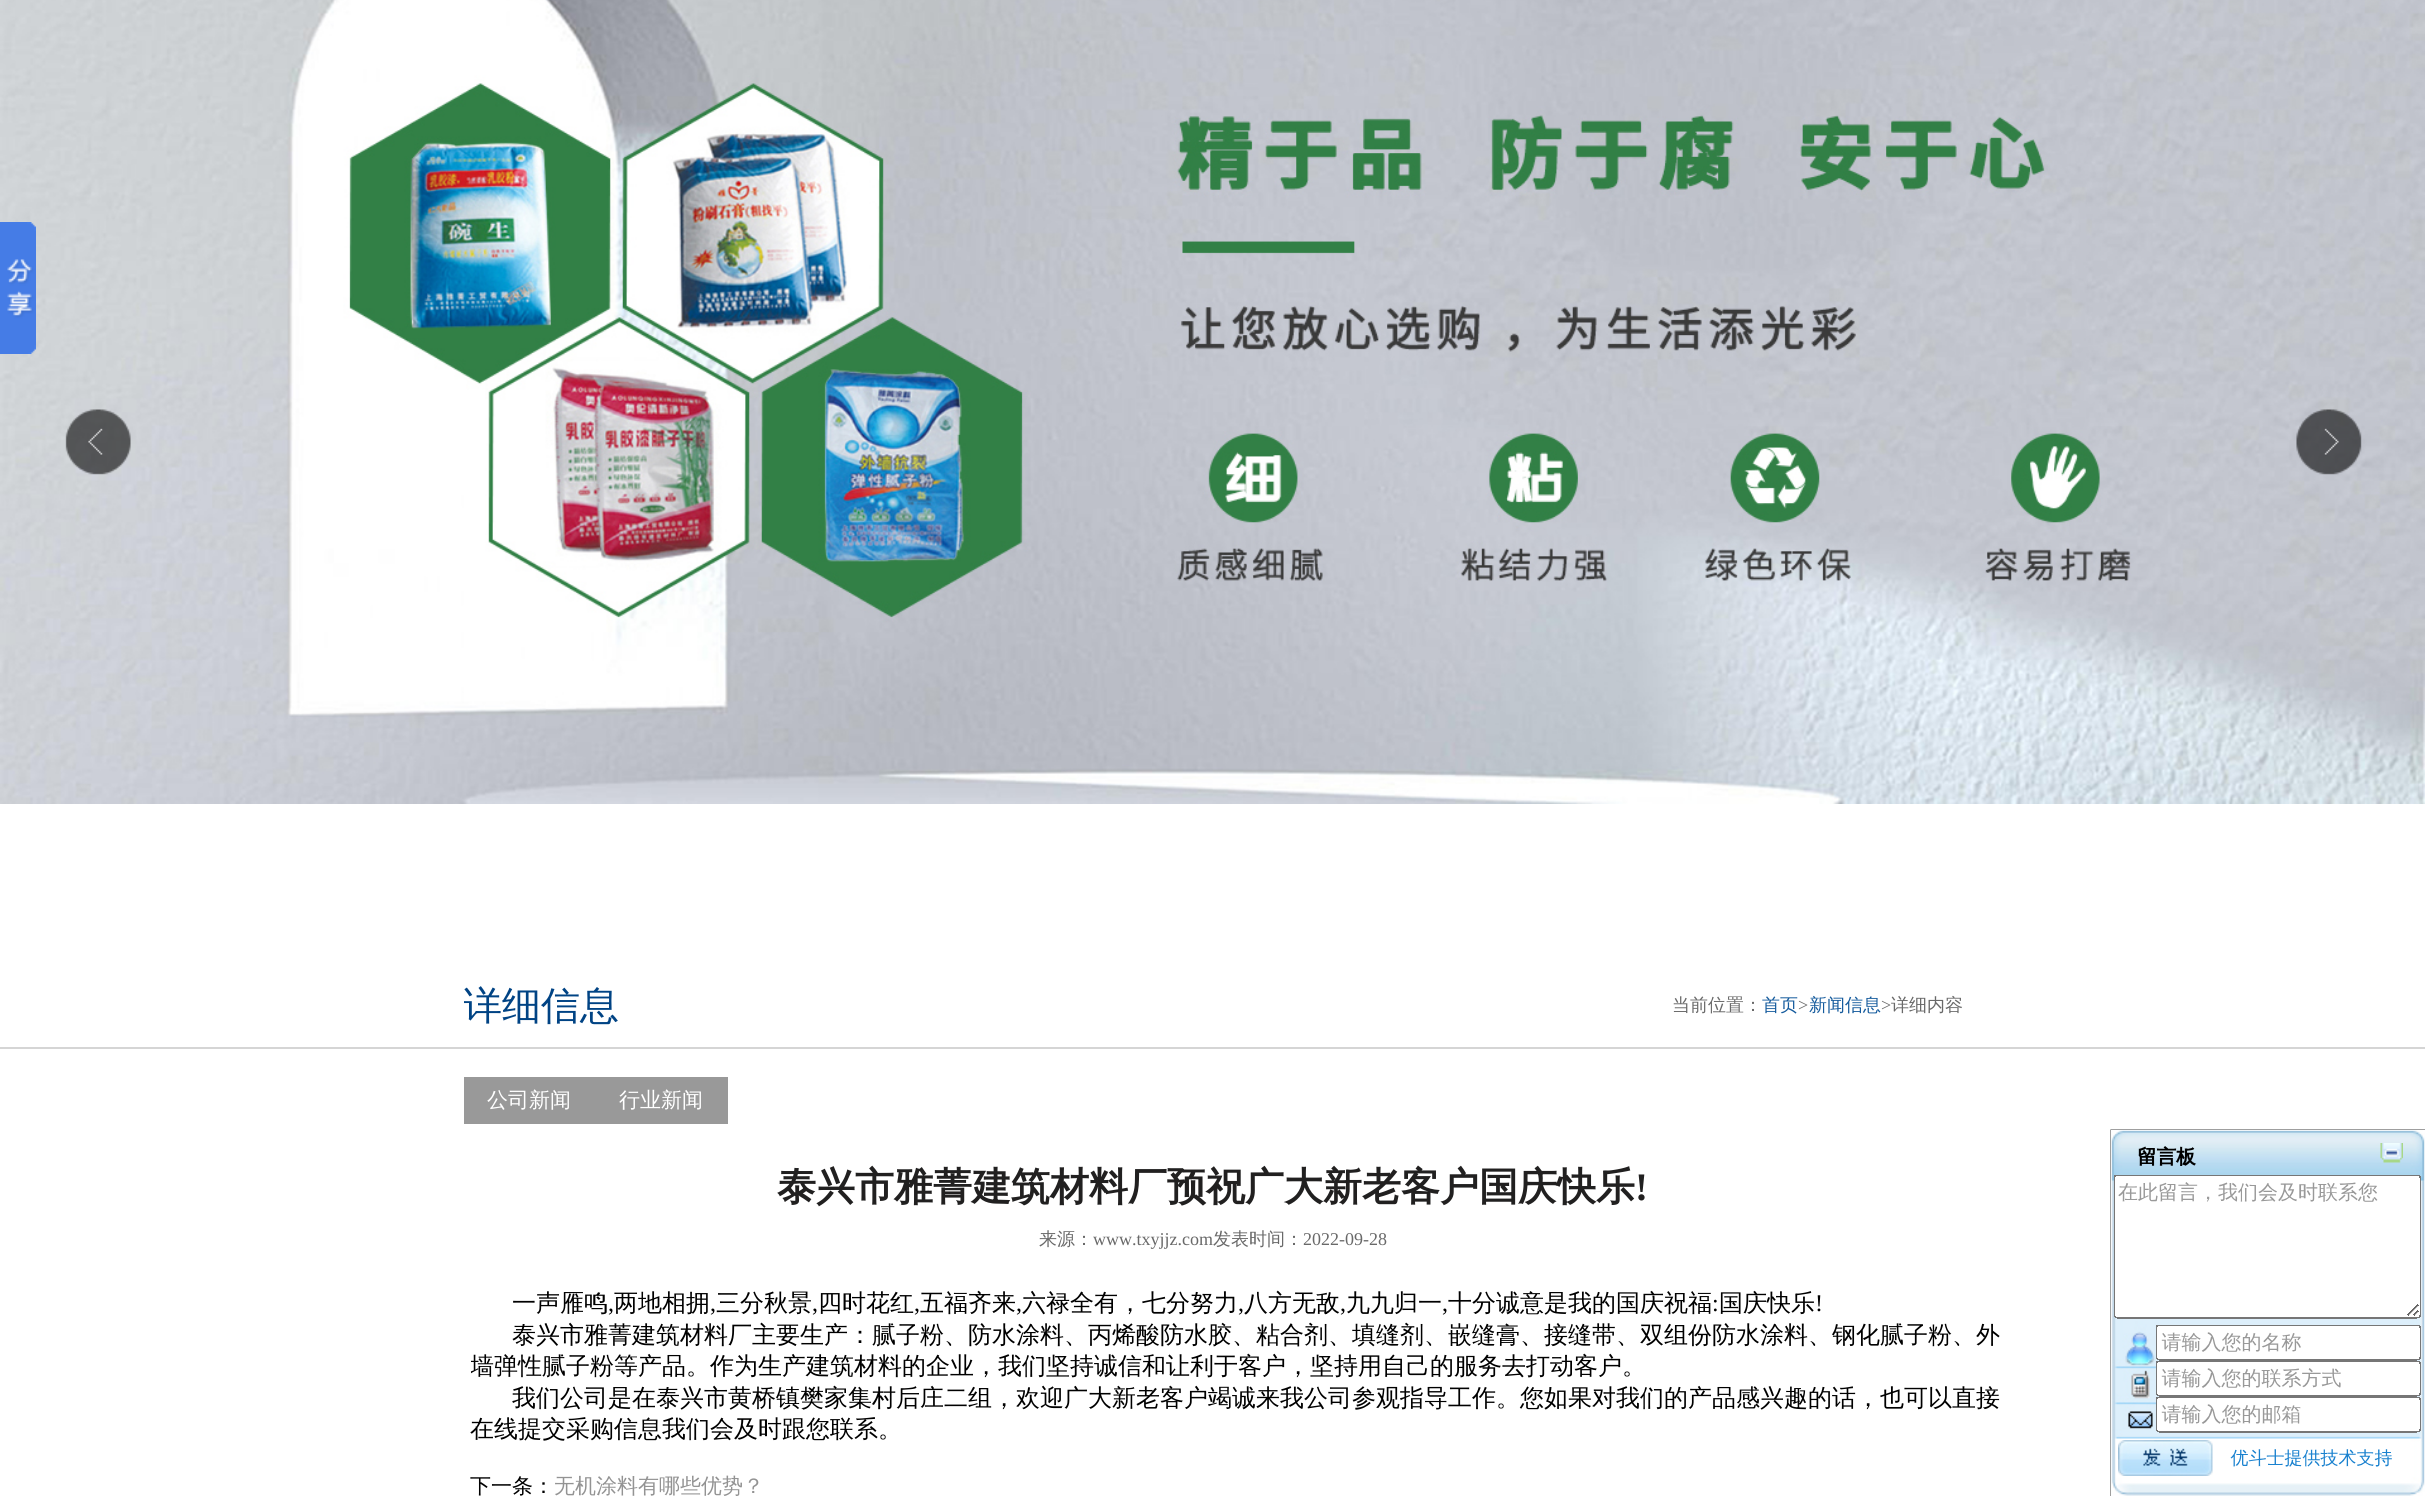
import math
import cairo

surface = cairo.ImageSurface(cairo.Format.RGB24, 2425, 1496)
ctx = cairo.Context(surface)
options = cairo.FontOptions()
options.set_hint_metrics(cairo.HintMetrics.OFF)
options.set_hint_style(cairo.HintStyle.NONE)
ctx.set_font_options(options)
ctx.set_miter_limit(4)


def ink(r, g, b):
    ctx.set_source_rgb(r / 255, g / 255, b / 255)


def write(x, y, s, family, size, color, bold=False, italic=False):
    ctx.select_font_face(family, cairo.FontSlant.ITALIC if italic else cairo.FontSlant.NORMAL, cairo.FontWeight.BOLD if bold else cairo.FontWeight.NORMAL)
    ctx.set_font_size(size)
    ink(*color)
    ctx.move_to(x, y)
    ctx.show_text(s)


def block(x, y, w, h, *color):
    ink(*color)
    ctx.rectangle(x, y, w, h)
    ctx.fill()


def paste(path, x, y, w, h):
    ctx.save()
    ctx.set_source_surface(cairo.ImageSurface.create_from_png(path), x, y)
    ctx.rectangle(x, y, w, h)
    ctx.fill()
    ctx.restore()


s1 = dict(family="WenQuanYi Zen Hei Medium", size=39, color=(0, 67, 132))
s2 = dict(family="WenQuanYi Zen Hei Medium", size=18, color=(105, 105, 105))
s3 = dict(family="WenQuanYi Zen Hei Medium", size=18, color=(21, 91, 157))
s4 = dict(family="Liberation Serif", size=18, color=(105, 105, 105))
s5 = dict(family="WenQuanYi Zen Hei Medium", size=21, color=(255, 255, 255))
s6 = dict(family="WenQuanYi Zen Hei", size=39, color=(33, 32, 32), bold=True)
s7 = dict(family="Liberation Serif", size=39, color=(33, 32, 32), bold=True)
s8 = dict(family="WenQuanYi Zen Hei Medium", size=24, color=(0, 0, 0))
s9 = dict(family="Liberation Serif", size=24, color=(0, 0, 0))
s10 = dict(family="WenQuanYi Zen Hei Medium", size=21, color=(0, 0, 0))
s11 = dict(family="WenQuanYi Zen Hei Medium", size=21, color=(147, 147, 147))

ink(255, 255, 255)
ctx.paint()
paste("pic1.png", 0, 0, 2425, 804)
paste("pic2.png", 65, 409, 66, 66)
paste("pic3.png", 2296, 409, 66, 66)
paste("pic4.png", 0, 222, 36, 132)
block(0, 1047, 2425, 2, 213, 213, 213)
ctx.save()
ctx.rectangle(464, 965, 1500, 82)
ctx.clip()
write(463, 1019, "详细信息", **s1)
ctx.restore()
write(1672, 1011, "当前位置：", **s2)
write(1762, 1011, "首页", **s3)
write(1798, 1011, ">", **s4)
write(1809, 1011, "新闻信息", **s3)
write(1881, 1011, ">", **s4)
write(1891, 1011, "详细内容", **s2)
block(464, 1077, 264, 47, 153, 153, 153)
write(487, 1107, "公司新闻", **s5)
write(619, 1107, "行业新闻", **s5)
write(777, 1200, "泰兴市雅菁建筑材料厂预祝广大新老客户国庆快乐", **s6)
write(1635, 1200, "!", **s7)
write(1039, 1245, "来源：", **s2)
write(1093, 1245, "www.txyjjz.com", **s4)
write(1213, 1245, "发表时间：", **s2)
write(1303, 1245, "2022-09-28", **s4)
write(512, 1311, "一声雁鸣", **s8)
write(608, 1311, ",", **s9)
write(614, 1311, "两地相拥", **s8)
write(710, 1311, ",", **s9)
write(716, 1311, "三分秋景", **s8)
write(812, 1311, ",", **s9)
write(818, 1311, "四时花红", **s8)
write(914, 1311, ",", **s9)
write(920, 1311, "五福齐来", **s8)
write(1016, 1311, ",", **s9)
write(1022, 1311, "六禄全有，七分努力", **s8)
write(1238, 1311, ",", **s9)
write(1244, 1311, "八方无敌", **s8)
write(1340, 1311, ",", **s9)
write(1346, 1311, "九九归一", **s8)
write(1442, 1311, ",", **s9)
write(1448, 1311, "十分诚意是我的国庆祝福", **s8)
write(1712, 1311, ":", **s9)
write(1719, 1311, "国庆快乐", **s8)
write(1815, 1311, "!", **s9)
write(512, 1343, "泰兴市雅菁建筑材料厂主要生产：腻子粉、防水涂料、丙烯酸防水胶、粘合剂、填缝剂、嵌缝膏、接缝带、双组份防水涂料、钢化腻子粉、外", **s8)
ctx.save()
ctx.rectangle(471, 1266, 1530, 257)
ctx.clip()
write(470, 1374, "墙弹性腻子粉等产品。作为生产建筑材料的企业，我们坚持诚信和让利于客户，坚持用自己的服务去打动客户。", **s8)
ctx.restore()
write(512, 1406, "我们公司是在泰兴市黄桥镇樊家集村后庄二组，欢迎广大新老客户竭诚来我公司参观指导工作。您如果对我们的产品感兴趣的话，也可以直接", **s8)
write(470, 1437, "在线提交采购信息我们会及时跟您联系。", **s8)
write(470, 1493, "下一条：", **s10)
write(554, 1493, "无机涂料有哪些优势？", **s11)
paste("pic5.png", 2110, 1129, 315, 367)
paste("pic6.png", 2380, 1143, 23, 20)
surface.write_to_png("screenshot.png")
